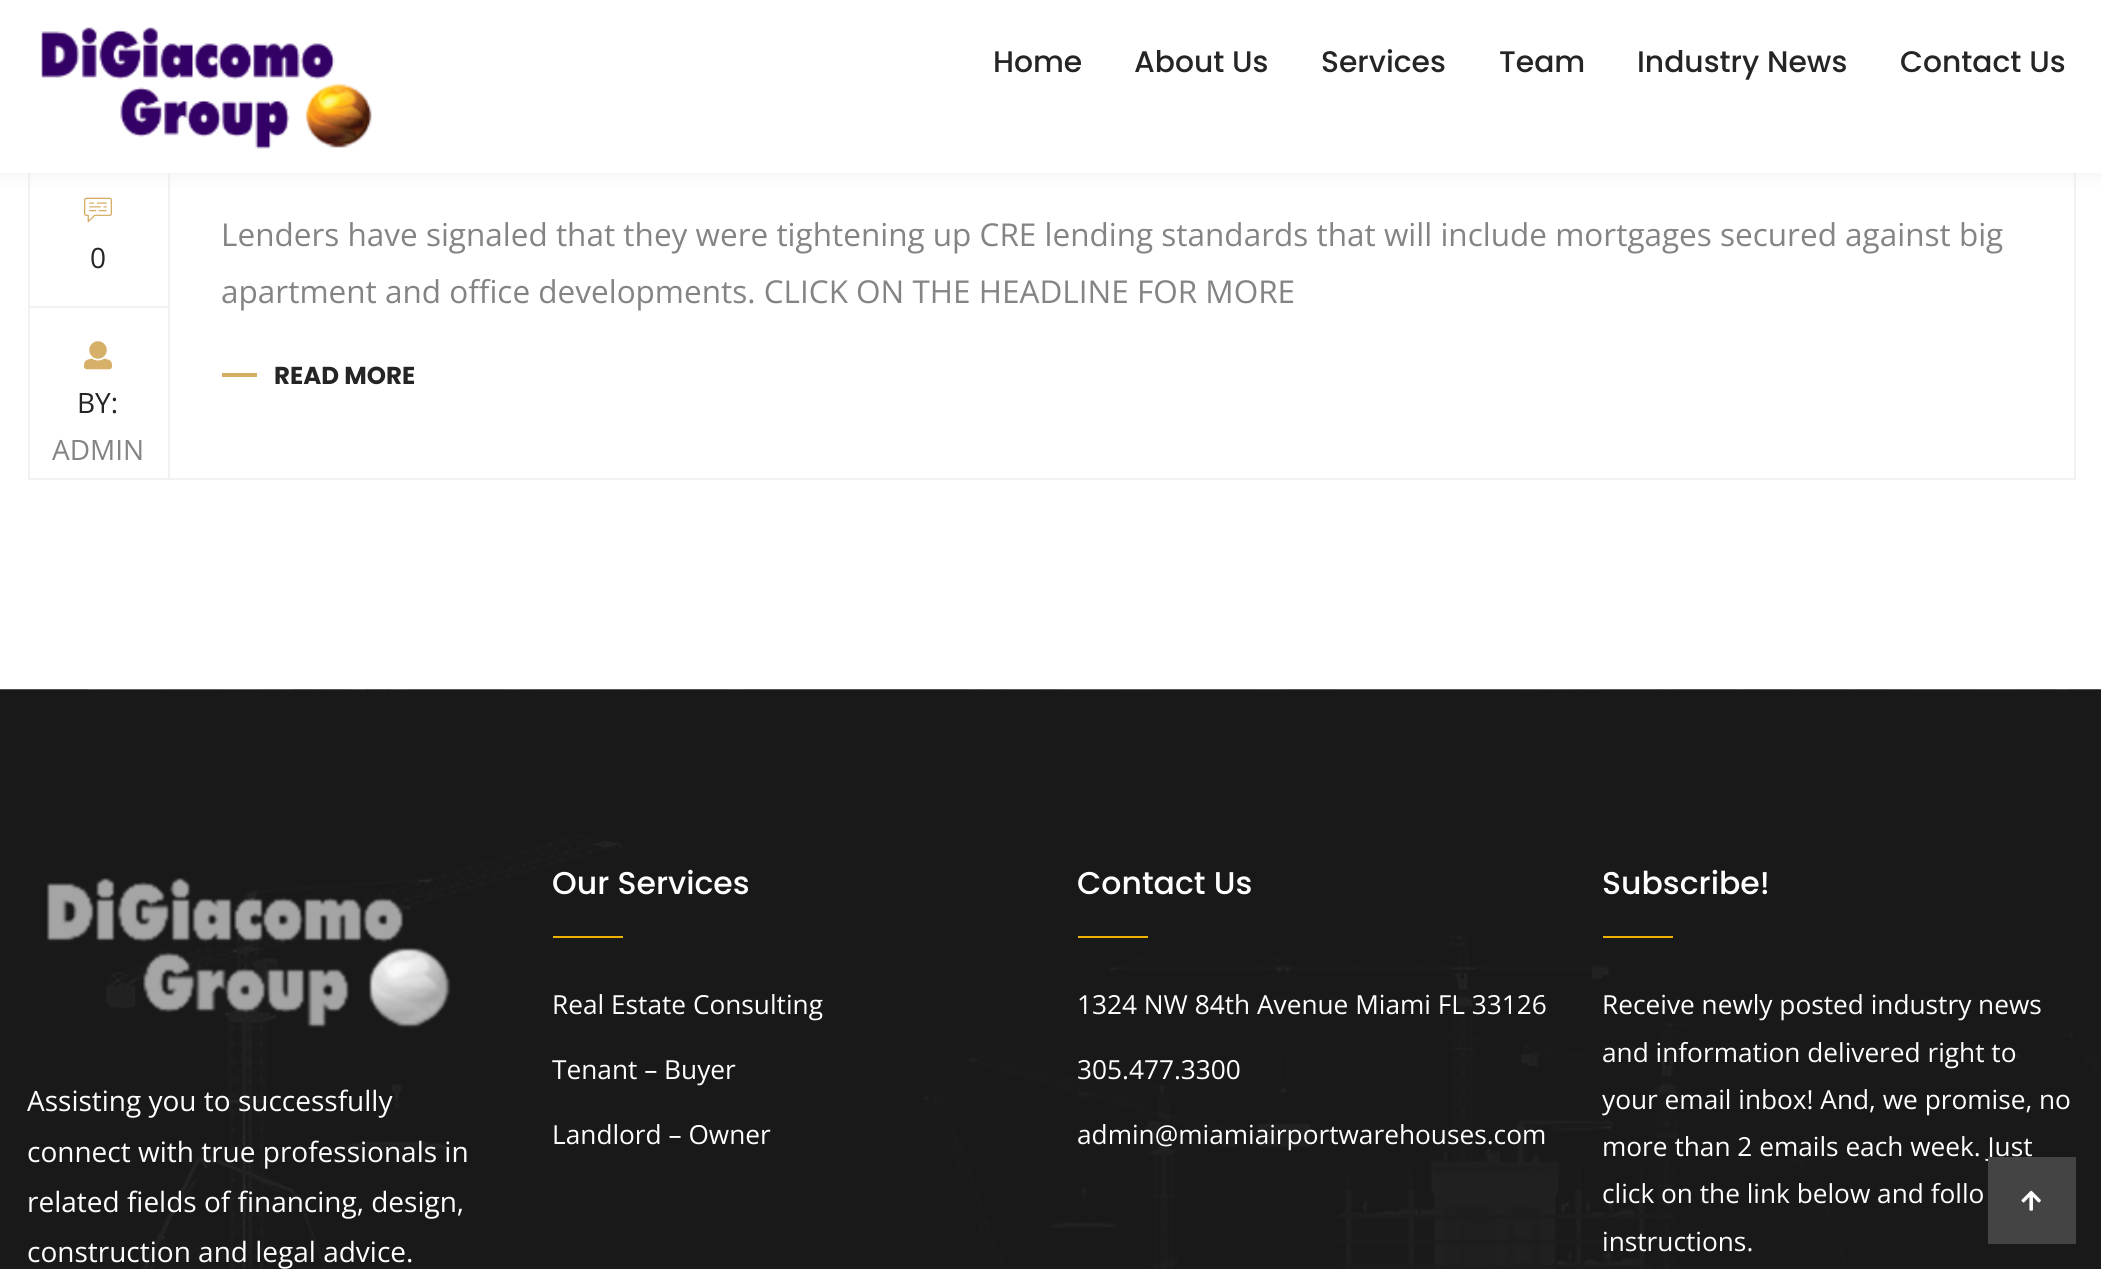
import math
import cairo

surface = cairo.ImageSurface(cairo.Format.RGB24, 2101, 1269)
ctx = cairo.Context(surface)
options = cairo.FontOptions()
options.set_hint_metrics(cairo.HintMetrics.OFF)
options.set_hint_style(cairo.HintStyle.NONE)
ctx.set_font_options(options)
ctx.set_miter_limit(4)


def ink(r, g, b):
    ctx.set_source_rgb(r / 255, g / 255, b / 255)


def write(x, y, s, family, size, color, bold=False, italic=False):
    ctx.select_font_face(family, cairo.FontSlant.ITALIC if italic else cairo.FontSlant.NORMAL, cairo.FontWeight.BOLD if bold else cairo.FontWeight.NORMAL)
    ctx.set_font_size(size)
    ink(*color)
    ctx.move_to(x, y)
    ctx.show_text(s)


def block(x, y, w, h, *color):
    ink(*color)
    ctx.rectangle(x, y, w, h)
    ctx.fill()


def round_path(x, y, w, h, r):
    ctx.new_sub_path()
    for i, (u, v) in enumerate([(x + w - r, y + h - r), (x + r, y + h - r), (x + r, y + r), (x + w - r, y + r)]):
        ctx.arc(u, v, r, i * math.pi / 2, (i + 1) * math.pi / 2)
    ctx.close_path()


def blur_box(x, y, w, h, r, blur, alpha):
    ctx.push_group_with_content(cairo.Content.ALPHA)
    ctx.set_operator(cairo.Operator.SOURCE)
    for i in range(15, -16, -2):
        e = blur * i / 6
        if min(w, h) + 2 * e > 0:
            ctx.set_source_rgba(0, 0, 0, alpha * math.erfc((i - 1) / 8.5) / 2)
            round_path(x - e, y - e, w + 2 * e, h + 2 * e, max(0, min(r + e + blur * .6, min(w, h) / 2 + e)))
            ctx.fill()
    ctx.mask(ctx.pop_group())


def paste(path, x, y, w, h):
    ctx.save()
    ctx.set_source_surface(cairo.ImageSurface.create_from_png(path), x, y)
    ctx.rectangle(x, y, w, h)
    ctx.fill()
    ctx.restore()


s1 = dict(family="Poppins Medium", size=29.75, color=(37, 37, 37))
s2 = dict(family="Open Sans", size=28, color=(37, 37, 37))
s3 = dict(family="Open Sans", size=28, color=(132, 132, 132))
s4 = dict(family="Open Sans", size=31.5, color=(132, 132, 132))
s5 = dict(family="Poppins", size=24.5, color=(37, 37, 37), bold=True)
s6 = dict(family="Poppins Medium", size=31.5, color=(255, 255, 255))
s7 = dict(family="Open Sans", size=26.25, color=(255, 255, 255))
s8 = dict(family="Open Sans", size=28, color=(255, 255, 255))

ink(255, 255, 255)
ctx.paint()
ctx.rectangle(29, 8, 2046, 471)
ink(242, 242, 242)
ctx.stroke()
block(168, 173, 2, 305, 242, 242, 242)
paste("pic2.png", 84, 197, 28, 26)
ink(227, 227, 227)
blur_box(0, 0, 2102, 173, 0, 9, 0.6)
block(0, 0, 2101, 173, 255, 255, 255)
paste("pic1.png", 41, 27, 331, 122)
write(993, 72, "Home", **s1)
write(1134, 72, "About Us", **s1)
write(1321, 72, "Services", **s1)
write(1499, 72, "Team", **s1)
write(1637, 72, "Industry News", **s1)
write(1900, 72, "Contact Us", **s1)
block(30, 306, 138, 2, 242, 242, 242)
write(90, 268, "0", **s2)
paste("pic3.png", 84, 341, 28, 29)
write(77, 413, "BY:", **s2)
write(52, 460, "ADMIN", **s3)
write(221, 246, "Lenders have signaled that they were tightening up CRE lending standards that will include mortgages secured against big", **s4)
write(221, 303, "apartment and office developments. CLICK ON THE HEADLINE FOR MORE", **s4)
block(222, 373, 35, 4, 213, 172, 99)
write(274, 384, "READ MORE", **s5)
paste("pic4.png", 0, 689, 2101, 580)
write(552, 894, "Our Services", **s6)
block(553, 936, 70, 2, 239, 178, 0)
write(552, 1014, "Real Estate Consulting", **s7)
write(552, 1079, "Tenant – Buyer", **s7)
write(552, 1144, "Landlord – Owner", **s7)
write(1077, 894, "Contact Us", **s6)
block(1078, 936, 70, 2, 239, 178, 0)
write(1077, 1014, "1324 NW 84th Avenue Miami FL 33126", **s7)
write(1077, 1079, "305.477.3300", **s7)
write(1077, 1144, "admin@miamiairportwarehouses.com", **s7)
write(1602, 894, "Subscribe!", **s6)
block(1603, 936, 70, 2, 239, 178, 0)
write(1602, 1014, "Receive newly posted industry news", **s7)
write(1602, 1062, "and information delivered right to", **s7)
write(1602, 1109, "your email inbox! And, we promise, no", **s7)
write(1602, 1156, "more than 2 emails each week. Just", **s7)
write(1602, 1203, "click on the link below and follo", **s7)
write(1602, 1251, "instructions.", **s7)
paste("pic5.png", 46, 878, 405, 150)
write(27, 1111, "Assisting you to successfully", **s8)
write(27, 1162, "connect with true professionals in", **s8)
write(27, 1212, "related fields of financing, design,", **s8)
write(27, 1262, "construction and legal advice.", **s8)
block(1988, 1157, 88, 87, 68, 68, 68)
paste("pic6.png", 2021, 1190, 20, 21)
surface.write_to_png("screenshot.png")
